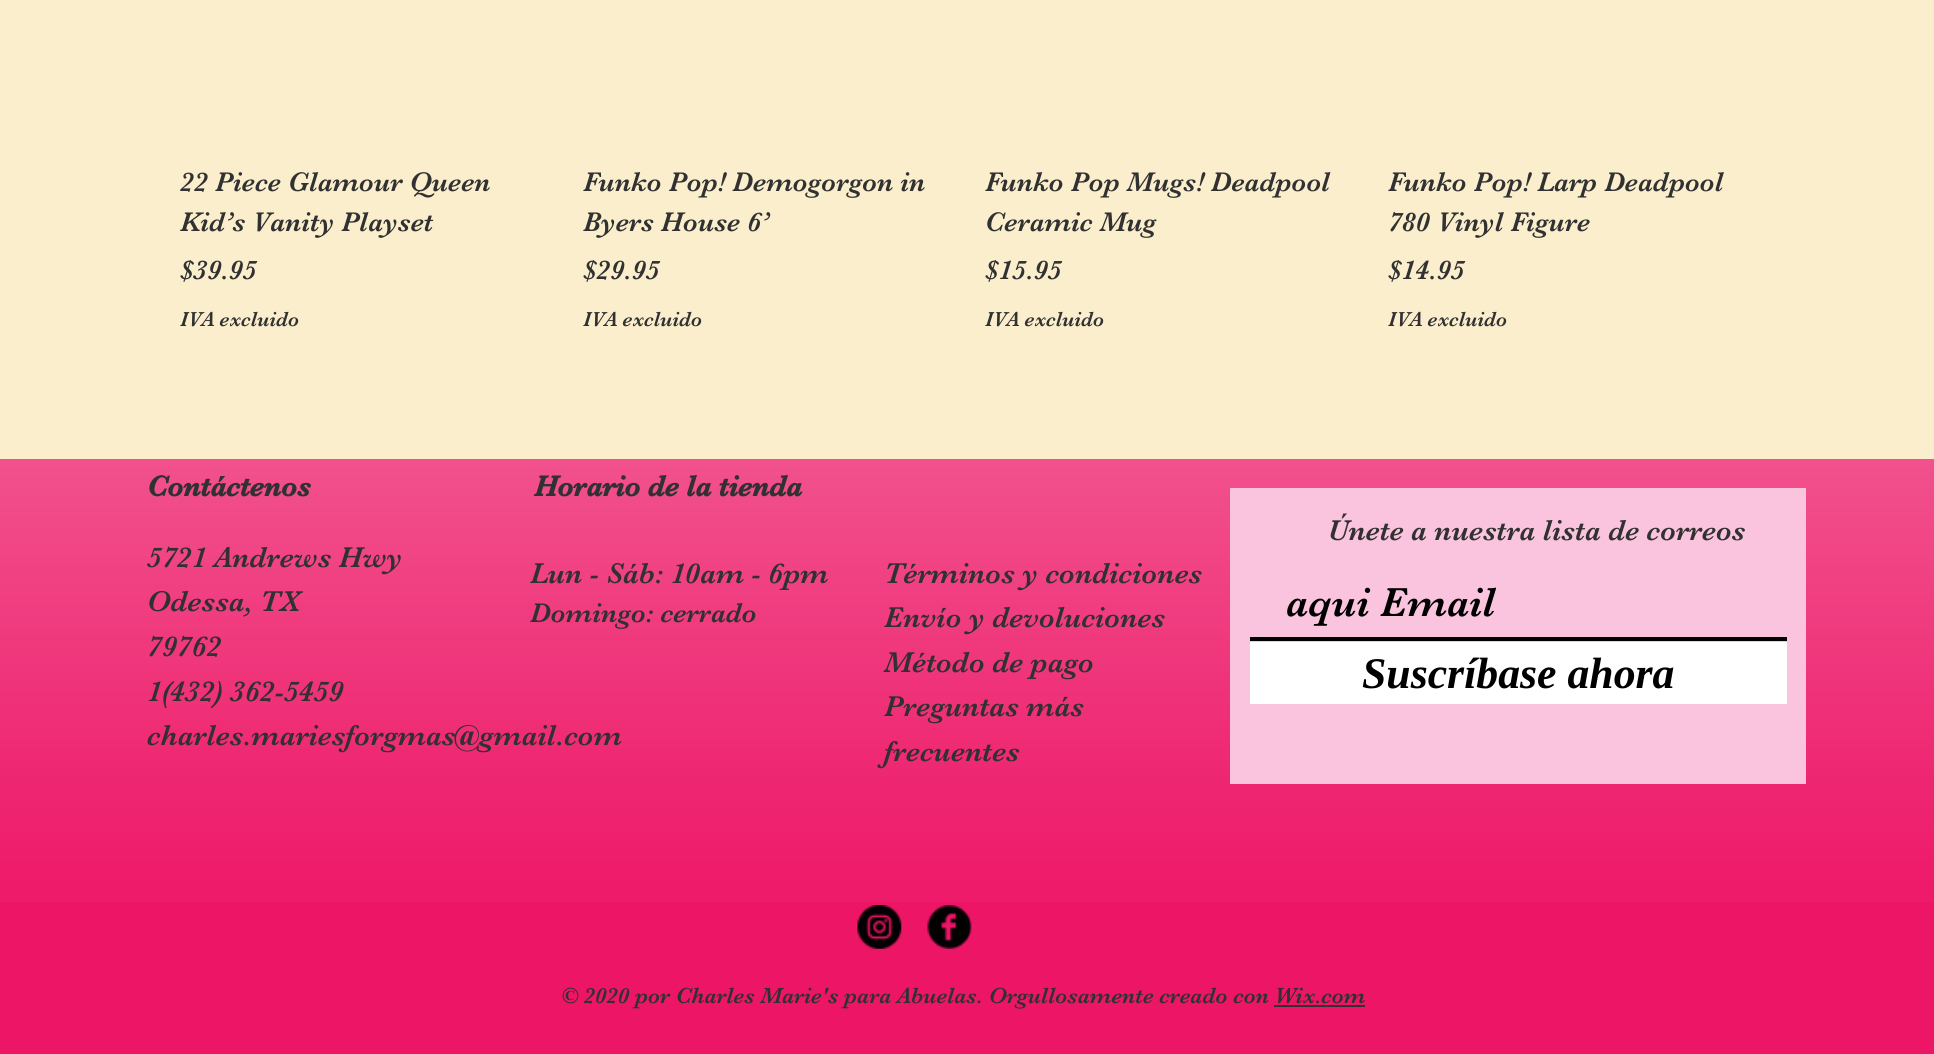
import math
import cairo

surface = cairo.ImageSurface(cairo.Format.RGB24, 1934, 1054)
ctx = cairo.Context(surface)
options = cairo.FontOptions()
options.set_hint_metrics(cairo.HintMetrics.OFF)
options.set_hint_style(cairo.HintStyle.NONE)
ctx.set_font_options(options)
ctx.set_miter_limit(4)


def ink(r, g, b):
    ctx.set_source_rgb(r / 255, g / 255, b / 255)


def write(x, y, s, family, size, color, bold=False, italic=False):
    ctx.select_font_face(family, cairo.FontSlant.ITALIC if italic else cairo.FontSlant.NORMAL, cairo.FontWeight.BOLD if bold else cairo.FontWeight.NORMAL)
    ctx.set_font_size(size)
    ink(*color)
    ctx.move_to(x, y)
    ctx.show_text(s)


def block(x, y, w, h, *color):
    ink(*color)
    ctx.rectangle(x, y, w, h)
    ctx.fill()


def paste(path, x, y, w, h):
    ctx.save()
    ctx.set_source_surface(cairo.ImageSurface.create_from_png(path), x, y)
    ctx.rectangle(x, y, w, h)
    ctx.fill()
    ctx.restore()


s1 = dict(family="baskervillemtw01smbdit", size=28, color=(49, 49, 49))
s2 = dict(family="baskervillemtw01smbdit", size=21, color=(49, 49, 49))
s3 = dict(family="baskervillemtw01smbdit", size=29.75, color=(49, 49, 49), bold=True)
s4 = dict(family="baskervillemtw01smbdit", size=29.75, color=(49, 49, 49))
s5 = dict(family="baskervillemtw01smbdit", size=42, color=(0, 0, 0))
s6 = dict(family="Liberation Serif", size=43.75, color=(0, 0, 0), bold=True, italic=True)
s7 = dict(family="baskervillemtw01smbdit", size=22.75, color=(49, 49, 49))

ink(250, 238, 205)
ctx.paint()
write(180, 191, "22 Piece Glamour Queen", **s1)
write(180, 231, "Kid’s Vanity Playset", **s1)
write(180, 279, "$39.95", **s1)
write(180, 326, "IVA excluido", **s2)
write(583, 191, "Funko Pop! Demogorgon in", **s1)
write(583, 231, "Byers House 6’", **s1)
write(583, 279, "$29.95", **s1)
write(583, 326, "IVA excluido", **s2)
write(985, 191, "Funko Pop Mugs! Deadpool", **s1)
write(985, 231, "Ceramic Mug", **s1)
write(985, 279, "$15.95", **s1)
write(985, 326, "IVA excluido", **s2)
write(1388, 191, "Funko Pop! Larp Deadpool", **s1)
write(1388, 231, "780 Vinyl Figure", **s1)
write(1388, 279, "$14.95", **s1)
write(1388, 326, "IVA excluido", **s2)
block(0, 459, 1934, 595, 237, 21, 102)
paste("pic1.png", 0, 459, 1934, 443)
write(147, 496, "Contáctenos", **s3)
write(534, 496, "Horario de la tienda", **s3)
write(147, 567, "5721 Andrews Hwy", **s4)
write(147, 611, "Odessa, TX", **s4)
write(147, 656, "79762", **s4)
write(147, 701, "1(432) 362-5459", **s4)
write(147, 745, "charles.mariesforgmas@gmail.com", **s4)
write(530, 583, "Lun - Sáb: 10am - 6pm", **s4)
write(530, 622, "Domingo: cerrado", **s1)
write(884, 583, "Términos y condiciones", **s4)
write(884, 627, "Envío y devoluciones", **s4)
write(884, 672, "Método de pago", **s4)
write(884, 716, "Preguntas más", **s4)
write(884, 761, "frecuentes", **s4)
block(1230, 488, 576, 296, 250, 196, 222)
write(1328, 540, "Únete a nuestra lista de correos", **s4)
block(1250, 637, 537, 4, 0, 0, 0)
write(1286, 616, "aqui Email", **s5)
block(1250, 642, 537, 62, 255, 255, 255)
write(1362, 688, "Suscríbase ahora", **s6)
paste("pic2.png", 857, 905, 45, 44)
paste("pic3.png", 927, 905, 45, 44)
write(562, 1003, "© 2020 por Charles Marie's para Abuelas. Orgullosamente creado con Wix.com", **s7)
block(1274, 1005, 91, 2, 49, 49, 49)
surface.write_to_png("screenshot.png")
